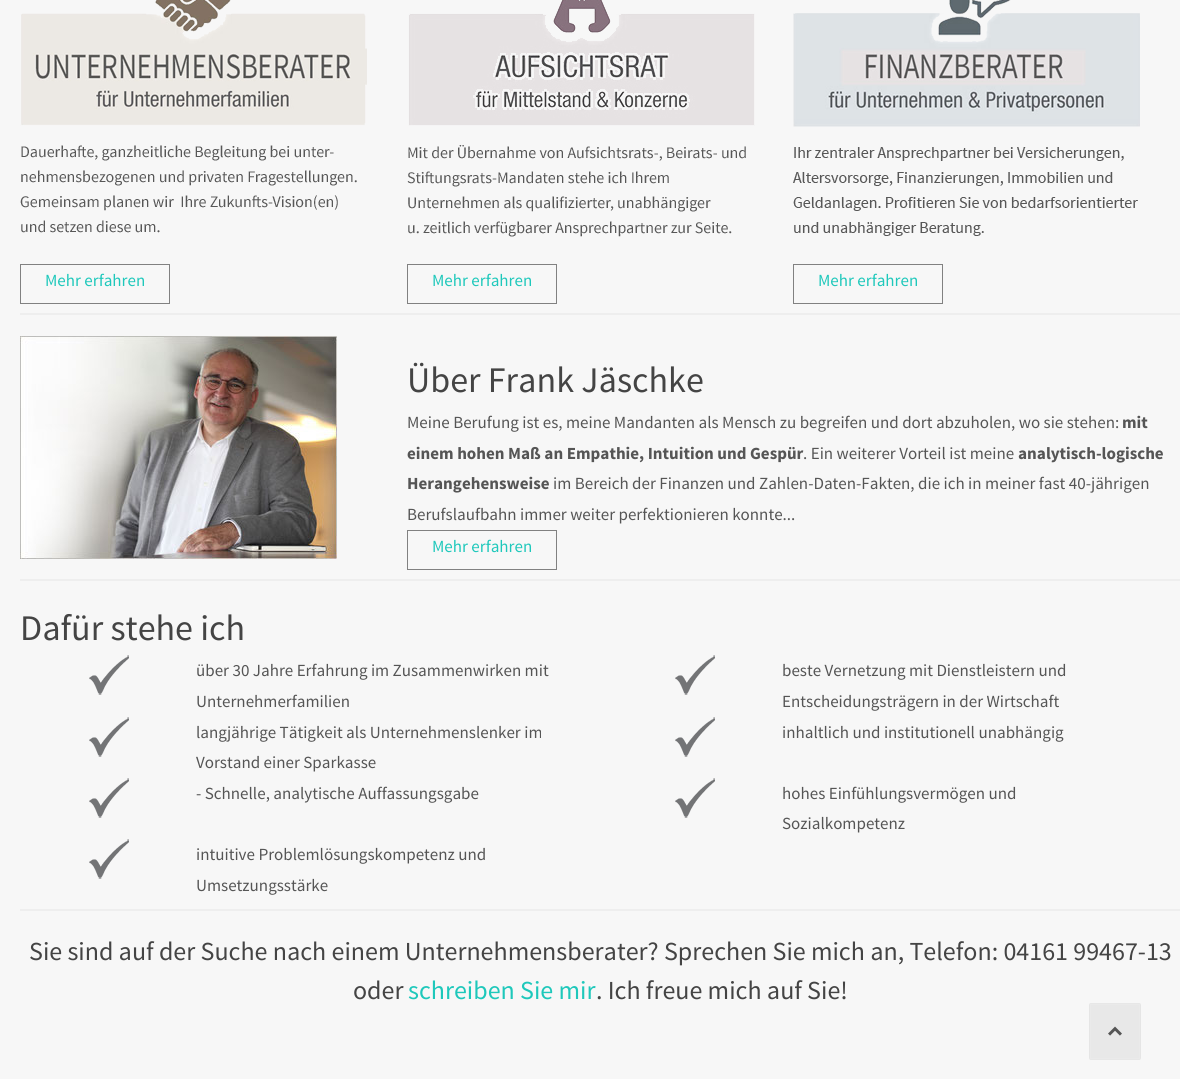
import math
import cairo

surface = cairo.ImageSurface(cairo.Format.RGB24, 1180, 1079)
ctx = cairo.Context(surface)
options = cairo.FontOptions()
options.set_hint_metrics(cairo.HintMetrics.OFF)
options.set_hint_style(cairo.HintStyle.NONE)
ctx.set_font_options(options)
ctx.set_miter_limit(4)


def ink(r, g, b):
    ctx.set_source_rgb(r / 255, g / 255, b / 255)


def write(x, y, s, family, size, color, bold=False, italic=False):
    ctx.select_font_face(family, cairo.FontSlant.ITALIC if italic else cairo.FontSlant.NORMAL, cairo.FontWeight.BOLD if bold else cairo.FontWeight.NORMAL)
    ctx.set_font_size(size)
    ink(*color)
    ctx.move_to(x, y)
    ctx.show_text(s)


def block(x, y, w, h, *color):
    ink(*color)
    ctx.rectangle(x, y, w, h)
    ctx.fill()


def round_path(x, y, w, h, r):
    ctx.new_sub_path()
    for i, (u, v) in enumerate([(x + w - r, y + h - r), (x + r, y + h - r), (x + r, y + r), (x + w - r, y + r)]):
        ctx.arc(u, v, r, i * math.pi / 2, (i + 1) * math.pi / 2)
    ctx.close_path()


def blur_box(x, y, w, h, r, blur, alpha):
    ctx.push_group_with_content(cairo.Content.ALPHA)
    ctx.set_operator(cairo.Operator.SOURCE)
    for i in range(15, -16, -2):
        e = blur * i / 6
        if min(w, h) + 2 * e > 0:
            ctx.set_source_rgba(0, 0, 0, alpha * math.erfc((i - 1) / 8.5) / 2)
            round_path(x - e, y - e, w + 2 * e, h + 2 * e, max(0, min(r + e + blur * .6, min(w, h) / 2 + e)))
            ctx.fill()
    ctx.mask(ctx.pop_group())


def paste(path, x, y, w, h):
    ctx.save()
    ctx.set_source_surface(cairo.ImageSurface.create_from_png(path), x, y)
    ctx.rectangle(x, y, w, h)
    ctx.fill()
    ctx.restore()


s1 = dict(family="Source Sans Pro", size=17, color=(30, 200, 187))
s2 = dict(family="Source Sans Pro", size=36, color=(68, 68, 68))
s3 = dict(family="Source Sans Pro", size=17, color=(85, 85, 85))
s4 = dict(family="Source Sans Pro", size=17, color=(85, 85, 85), bold=True)
s5 = dict(family="Source Sans Pro", size=26, color=(68, 68, 68))
s6 = dict(family="Source Sans Pro", size=26, color=(30, 200, 187))

ink(247, 247, 247)
ctx.paint()
paste("pic1.png", 20, 0, 347, 233)
paste("pic2.png", 407, 0, 348, 237)
paste("pic3.png", 793, 0, 347, 236)
ctx.rectangle(20.5, 264.5, 149, 39)
ink(129, 129, 129)
ctx.set_line_width(1)
ctx.stroke()
write(45, 286, "Mehr erfahren", **s1)
ctx.rectangle(407.5, 264.5, 149, 39)
ink(129, 129, 129)
ctx.stroke()
write(432, 286, "Mehr erfahren", **s1)
ctx.rectangle(793.5, 264.5, 149, 39)
ink(129, 129, 129)
ctx.stroke()
write(818, 286, "Mehr erfahren", **s1)
block(20, 313, 1160, 2, 238, 238, 238)
paste("pic4.png", 20, 336, 317, 223)
write(407, 392, "Über Frank Jäschke", **s2)
write(407, 428, "Meine Berufung ist es, meine Mandanten als Mensch zu begreifen und dort abzuholen, wo sie stehen:", **s3)
write(1122, 428, "mit", **s4)
write(407, 459, "einem hohen Maß an Empathie, Intuition und Gespür", **s4)
write(803, 459, ". Ein weiterer Vorteil ist meine", **s3)
write(1018, 459, "analytisch-logische", **s4)
write(407, 489, "Herangehensweise", **s4)
write(553, 489, "im Bereich der Finanzen und Zahlen-Daten-Fakten, die ich in meiner fast 40-jährigen", **s3)
write(407, 520, "Berufslaufbahn immer weiter perfektionieren konnte...", **s3)
ctx.rectangle(407.5, 530.5, 149, 39)
ink(129, 129, 129)
ctx.stroke()
write(432, 552, "Mehr erfahren", **s1)
block(20, 579, 1160, 2, 238, 238, 238)
write(20, 640, "Dafür stehe ich", **s2)
paste("pic5.png", 89, 655, 40, 40)
write(196, 676, "über 30 Jahre Erfahrung im Zusammenwirken mit", **s3)
write(196, 707, "Unternehmerfamilien", **s3)
paste("pic5.png", 675, 655, 40, 40)
write(782, 676, "beste Vernetzung mit Dienstleistern und", **s3)
write(782, 707, "Entscheidungsträgern in der Wirtschaft", **s3)
paste("pic5.png", 89, 717, 40, 40)
write(196, 738, "langjährige Tätigkeit als Unternehmenslenker im", **s3)
write(196, 768, "Vorstand einer Sparkasse", **s3)
paste("pic5.png", 675, 717, 40, 40)
write(782, 738, "inhaltlich und institutionell unabhängig", **s3)
paste("pic5.png", 89, 778, 40, 40)
write(196, 799, "- Schnelle, analytische Auffassungsgabe", **s3)
paste("pic5.png", 675, 778, 40, 40)
write(782, 799, "hohes Einfühlungsvermögen und", **s3)
write(782, 829, "Sozialkompetenz", **s3)
paste("pic5.png", 89, 839, 40, 40)
write(196, 860, "intuitive Problemlösungskompetenz und", **s3)
write(196, 891, "Umsetzungsstärke", **s3)
block(20, 909, 1160, 2, 238, 238, 238)
write(29, 960, "Sie sind auf der Suche nach einem Unternehmensberater? Sprechen Sie mich an, Telefon: 04161 99467-13", **s5)
write(353, 999, "oder", **s5)
write(408, 999, "schreiben Sie mir", **s6)
write(596, 999, ". Ich freue mich auf Sie!", **s5)
ink(0, 0, 0)
blur_box(1090, 1004, 50, 55, 0, 0.5, 0.28)
ink(232, 232, 232)
ctx.rectangle(1090.5, 1004.5, 49, 54)
ctx.fill_preserve()
ink(234, 234, 234)
ctx.stroke()
paste("pic6.png", 1108, 1026, 14, 10)
surface.write_to_png("screenshot.png")
